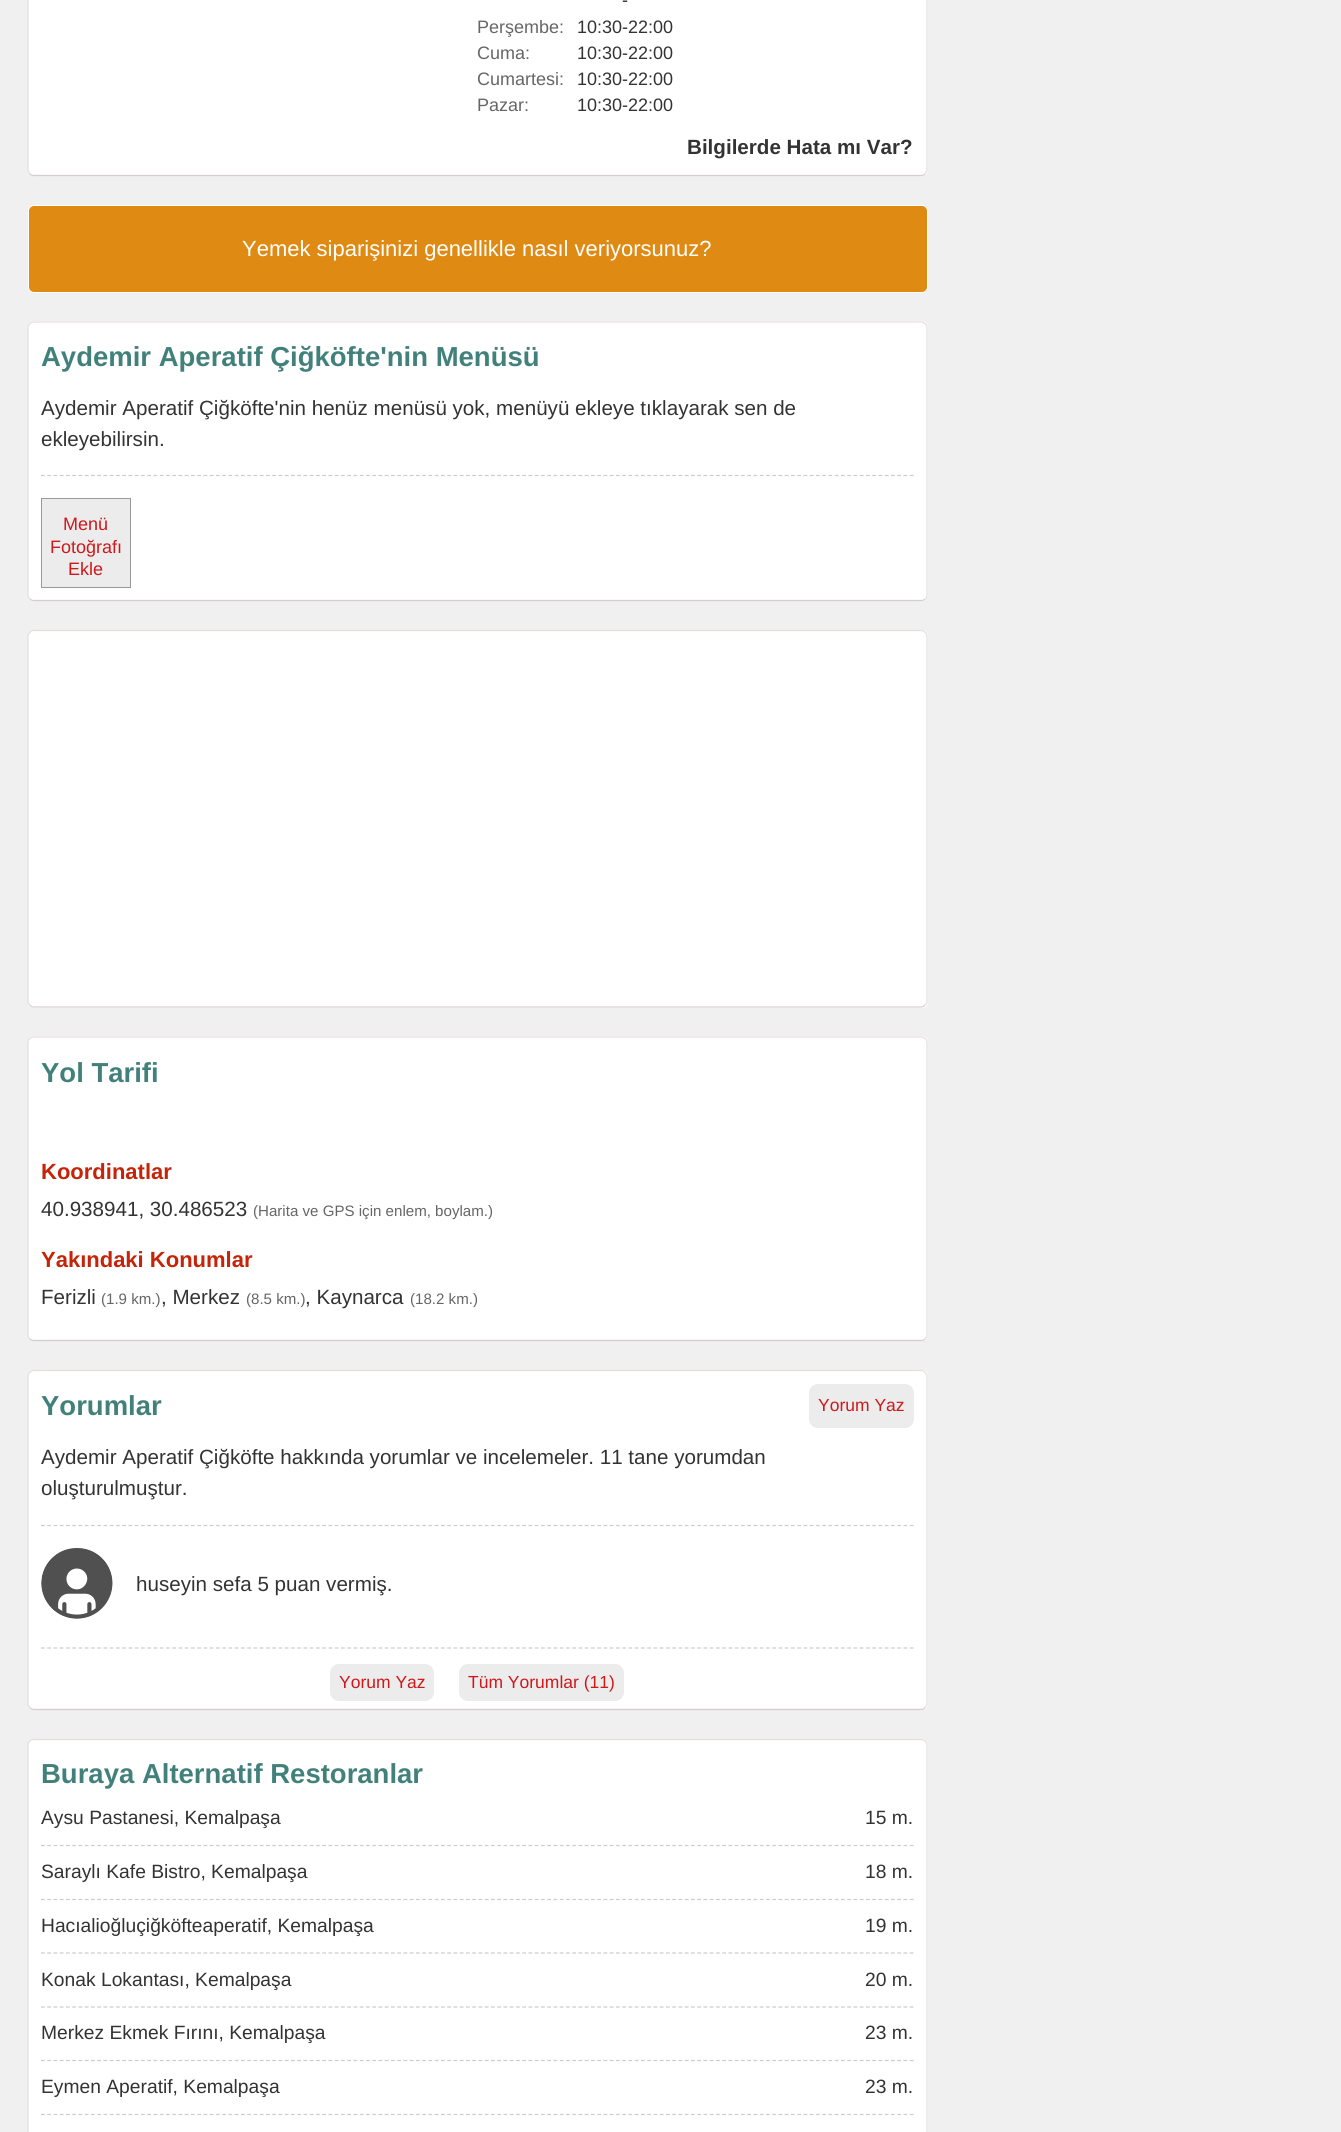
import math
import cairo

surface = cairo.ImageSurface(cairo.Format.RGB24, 1341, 2132)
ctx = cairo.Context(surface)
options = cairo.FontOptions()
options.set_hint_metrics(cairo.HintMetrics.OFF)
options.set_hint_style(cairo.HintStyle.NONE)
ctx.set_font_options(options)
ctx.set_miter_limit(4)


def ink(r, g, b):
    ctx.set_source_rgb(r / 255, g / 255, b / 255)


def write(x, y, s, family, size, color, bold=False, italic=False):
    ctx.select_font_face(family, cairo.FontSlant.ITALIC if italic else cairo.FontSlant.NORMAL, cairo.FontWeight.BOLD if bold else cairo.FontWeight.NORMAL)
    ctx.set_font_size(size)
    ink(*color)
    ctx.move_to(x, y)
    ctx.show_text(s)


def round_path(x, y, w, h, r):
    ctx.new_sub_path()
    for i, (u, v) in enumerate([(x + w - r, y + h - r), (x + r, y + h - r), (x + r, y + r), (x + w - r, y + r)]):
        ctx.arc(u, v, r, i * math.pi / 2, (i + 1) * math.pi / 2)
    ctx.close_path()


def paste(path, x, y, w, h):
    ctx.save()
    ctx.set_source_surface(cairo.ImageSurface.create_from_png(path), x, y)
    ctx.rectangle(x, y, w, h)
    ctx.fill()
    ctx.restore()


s1 = dict(family="Liberation Sans", size=18, color=(51, 51, 51))
s2 = dict(family="Liberation Sans", size=18, color=(102, 102, 102))
s3 = dict(family="Liberation Sans", size=20.6, color=(51, 51, 51), bold=True)
s4 = dict(family="Liberation Sans", size=22, color=(255, 255, 255))
s5 = dict(family="Liberation Sans", size=27.5, color=(66, 129, 123), bold=True)
s6 = dict(family="Liberation Sans", size=20.6, color=(51, 51, 51))
s7 = dict(family="Liberation Sans", size=18, color=(206, 24, 27))
s8 = dict(family="Liberation Sans", size=22, color=(197, 36, 8), bold=True)
s9 = dict(family="Liberation Sans", size=15.1, color=(102, 102, 102))
s10 = dict(family="Liberation Sans", size=17.5, color=(206, 24, 27))
s11 = dict(family="Liberation Sans", size=19.25, color=(51, 51, 51))

ink(240, 240, 240)
ctx.paint()
ink(255, 255, 255)
round_path(28, -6, 900, 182, 6)
ctx.fill()
ctx.new_path()
ctx.move_to(925, 174)
ctx.curve_to(924, 175, 922.5, 175.5, 921, 175.5)
ctx.line_to(34, 175.5)
ctx.curve_to(32.5, 175.5, 31, 175, 30, 174)
ink(212, 206, 205)
ctx.set_line_width(1.2)
ctx.stroke()
ctx.new_path()
ctx.move_to(30, 174)
ctx.line_to(28, 170.5)
ctx.line_to(28, -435)
ctx.curve_to(28, -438, 30.5, -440.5, 34, -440.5)
ctx.line_to(921, -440.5)
ctx.curve_to(924.5, -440.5, 927, -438, 927, -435)
ctx.line_to(927, 170.5)
ctx.line_to(925, 174)
ink(227, 222, 220)
ctx.stroke()
write(622, 6, "-", **s1)
write(477, 33, "Perşembe:", **s2)
write(577, 33, "10:30-22:00", **s1)
write(477, 59, "Cuma:", **s2)
write(577, 59, "10:30-22:00", **s1)
write(477, 85, "Cumartesi:", **s2)
write(577, 85, "10:30-22:00", **s1)
write(477, 111, "Pazar:", **s2)
write(577, 111, "10:30-22:00", **s1)
write(687, 154, "Bilgilerde Hata mı Var?", **s3)
ink(223, 138, 19)
round_path(28.5, 205.5, 899, 87, 5.5)
ctx.fill_preserve()
ink(255, 255, 255)
ctx.set_line_width(1)
ctx.stroke()
write(242, 256, "Yemek siparişinizi genellikle nasıl veriyorsunuz?", **s4)
round_path(28, 321, 900, 280, 6)
ctx.fill()
ctx.new_path()
ctx.move_to(925, 599)
ctx.curve_to(924, 600, 922.5, 600.5, 921, 600.5)
ctx.line_to(34, 600.5)
ctx.curve_to(32.5, 600.5, 31, 600, 30, 599)
ink(212, 206, 205)
ctx.set_line_width(1.2)
ctx.stroke()
ctx.new_path()
ctx.move_to(30, 599)
ctx.curve_to(28.5, 598, 28, 596.5, 28, 595)
ctx.line_to(28, 327.5)
ctx.curve_to(28, 326, 28.5, 324.5, 30, 323.5)
ctx.curve_to(31, 322.5, 32.5, 322, 34, 322)
ctx.line_to(921, 322)
ctx.curve_to(922.5, 322, 924, 322.5, 925, 323.5)
ctx.curve_to(926.5, 324.5, 927, 326, 927, 327.5)
ctx.line_to(927, 595)
ctx.curve_to(927, 596.5, 926.5, 598, 925, 599)
ink(227, 222, 220)
ctx.stroke()
write(41, 366, "Aydemir Aperatif Çiğköfte'nin Menüsü", **s5)
write(41, 415, "Aydemir Aperatif Çiğköfte'nin henüz menüsü yok, menüyü ekleye tıklayarak sen de", **s6)
write(41, 446, "ekleyebilirsin.", **s6)
ctx.new_path()
ctx.move_to(41, 475.5)
ctx.line_to(914, 475.5)
ink(204, 204, 204)
ctx.set_dash([3.75, 2.5])
ctx.stroke()
ink(236, 236, 236)
ctx.rectangle(41.5, 498.5, 89, 89)
ctx.fill_preserve()
ink(153, 153, 153)
ctx.set_line_width(1)
ctx.set_dash([])
ctx.stroke()
write(63, 530, "Menü", **s7)
write(50, 553, "Fotoğrafı", **s7)
write(68, 575, "Ekle", **s7)
ink(255, 255, 255)
round_path(28, 630, 900, 378, 6)
ctx.fill()
ctx.new_path()
ctx.move_to(925, 1005)
ctx.curve_to(924, 1006.5, 922.5, 1007, 921, 1007)
ctx.line_to(34, 1007)
ctx.curve_to(32.5, 1007, 31, 1006.5, 30, 1005)
ink(212, 206, 205)
ctx.set_line_width(1.2)
ctx.stroke()
ctx.new_path()
ctx.move_to(30, 1005)
ctx.curve_to(28.5, 1004, 28, 1002.5, 28, 1001)
ctx.line_to(28, 636)
ctx.curve_to(28, 635, 28.5, 633.5, 30, 632.5)
ctx.curve_to(31, 631, 32.5, 630.5, 34, 630.5)
ctx.line_to(921, 630.5)
ctx.curve_to(922.5, 630.5, 924, 631, 925, 632.5)
ctx.curve_to(926.5, 633.5, 927, 635, 927, 636)
ctx.line_to(927, 1001)
ctx.curve_to(927, 1002.5, 926.5, 1004, 925, 1005)
ink(227, 222, 220)
ctx.stroke()
ink(255, 255, 255)
round_path(28, 1036, 900, 305, 6)
ctx.fill()
ctx.new_path()
ctx.move_to(925, 1339)
ctx.curve_to(924, 1340, 922.5, 1340.5, 921, 1340.5)
ctx.line_to(34, 1340.5)
ctx.curve_to(32.5, 1340.5, 31, 1340, 30, 1339)
ink(212, 206, 205)
ctx.stroke()
ctx.new_path()
ctx.move_to(30, 1339)
ctx.curve_to(28.5, 1338, 28, 1336.5, 28, 1335)
ctx.line_to(28, 1042.5)
ctx.curve_to(28, 1041, 28.5, 1039.5, 30, 1038.5)
ctx.curve_to(31, 1037.5, 32.5, 1037, 34, 1037)
ctx.line_to(921, 1037)
ctx.curve_to(922.5, 1037, 924, 1037.5, 925, 1038.5)
ctx.curve_to(926.5, 1039.5, 927, 1041, 927, 1042.5)
ctx.line_to(927, 1335)
ctx.curve_to(927, 1336.5, 926.5, 1338, 925, 1339)
ink(227, 222, 220)
ctx.stroke()
write(41, 1082, "Yol Tarifi", **s5)
write(41, 1179, "Koordinatlar", **s8)
write(41, 1216, "40.938941, 30.486523", **s6)
write(253, 1216, "(Harita ve GPS için enlem, boylam.)", **s9)
write(41, 1267, "Yakındaki Konumlar", **s8)
write(41, 1304, "Ferizli", **s6)
write(101, 1304, "(1.9 km.)", **s9)
write(161, 1304, ", Merkez", **s6)
write(246, 1304, "(8.5 km.)", **s9)
write(305, 1304, ", Kaynarca", **s6)
write(410, 1304, "(18.2 km.)", **s9)
ink(255, 255, 255)
round_path(28, 1370, 900, 340, 6)
ctx.fill()
ctx.new_path()
ctx.move_to(925, 1707.5)
ctx.curve_to(924, 1709, 922.5, 1709.5, 921, 1709.5)
ctx.line_to(34, 1709.5)
ctx.curve_to(32.5, 1709.5, 31, 1709, 30, 1707.5)
ink(212, 206, 205)
ctx.stroke()
ctx.new_path()
ctx.move_to(30, 1707.5)
ctx.curve_to(28.5, 1706.5, 28, 1705, 28, 1704)
ctx.line_to(28, 1376)
ctx.curve_to(28, 1375, 28.5, 1373.5, 30, 1372.5)
ctx.curve_to(31, 1371, 32.5, 1370.5, 34, 1370.5)
ctx.line_to(921, 1370.5)
ctx.curve_to(922.5, 1370.5, 924, 1371, 925, 1372.5)
ctx.curve_to(926.5, 1373.5, 927, 1375, 927, 1376)
ctx.line_to(927, 1704)
ctx.curve_to(927, 1705, 926.5, 1706.5, 925, 1707.5)
ink(227, 222, 220)
ctx.stroke()
write(41, 1415, "Yorumlar", **s5)
ink(236, 236, 236)
round_path(809, 1384, 105, 44, 9)
ctx.fill()
write(818, 1411, "Yorum Yaz", **s10)
write(41, 1464, "Aydemir Aperatif Çiğköfte hakkında yorumlar ve incelemeler. 11 tane yorumdan", **s6)
write(41, 1495, "oluşturulmuştur.", **s6)
ctx.new_path()
ctx.move_to(41, 1525.5)
ctx.line_to(914, 1525.5)
ink(204, 204, 204)
ctx.set_dash([3.75, 2.5])
ctx.stroke()
paste("pic1.png", 41, 1548, 72, 71)
write(136, 1591, "huseyin sefa 5 puan vermiş.", **s6)
ctx.new_path()
ctx.move_to(41, 1648)
ctx.line_to(914, 1648)
ink(204, 204, 204)
ctx.stroke()
ink(236, 236, 236)
round_path(330, 1664, 104, 37, 9)
ctx.fill()
write(339, 1688, "Yorum Yaz", **s10)
ink(236, 236, 236)
round_path(459, 1664, 165, 37, 9)
ctx.fill()
write(468, 1688, "Tüm Yorumlar (11)", **s10)
ink(255, 255, 255)
round_path(28, 1739, 900, 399, 6)
ctx.fill()
ctx.new_path()
ctx.move_to(30, 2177.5)
ctx.curve_to(28.5, 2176.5, 28, 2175, 28, 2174)
ctx.line_to(28, 1745)
ctx.curve_to(28, 1743.5, 28.5, 1742, 30, 1741)
ctx.curve_to(31, 1740, 32.5, 1739.5, 34, 1739.5)
ctx.line_to(921, 1739.5)
ctx.curve_to(922.5, 1739.5, 924, 1740, 925, 1741)
ctx.curve_to(926.5, 1742, 927, 1743.5, 927, 1745)
ctx.line_to(927, 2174)
ctx.curve_to(927, 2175, 926.5, 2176.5, 925, 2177.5)
ink(227, 222, 220)
ctx.set_dash([])
ctx.stroke()
write(41, 1783, "Buraya Alternatif Restoranlar", **s5)
write(41, 1824, "Aysu Pastanesi, Kemalpaşa", **s11)
write(865, 1824, "15 m.", **s11)
ctx.new_path()
ctx.move_to(41, 1845.5)
ctx.line_to(914, 1845.5)
ink(204, 204, 204)
ctx.set_dash([3.75, 2.5])
ctx.stroke()
write(41, 1878, "Saraylı Kafe Bistro, Kemalpaşa", **s11)
write(865, 1878, "18 m.", **s11)
ctx.new_path()
ctx.move_to(41, 1899.5)
ctx.line_to(914, 1899.5)
ink(204, 204, 204)
ctx.stroke()
write(41, 1932, "Hacıalioğluçiğköfteaperatif, Kemalpaşa", **s11)
write(865, 1932, "19 m.", **s11)
ctx.new_path()
ctx.move_to(41, 1953)
ctx.line_to(914, 1953)
ink(204, 204, 204)
ctx.stroke()
write(41, 1986, "Konak Lokantası, Kemalpaşa", **s11)
write(865, 1986, "20 m.", **s11)
ctx.new_path()
ctx.move_to(41, 2007)
ctx.line_to(914, 2007)
ink(204, 204, 204)
ctx.stroke()
write(41, 2039, "Merkez Ekmek Fırını, Kemalpaşa", **s11)
write(865, 2039, "23 m.", **s11)
ctx.new_path()
ctx.move_to(41, 2060.5)
ctx.line_to(914, 2060.5)
ink(204, 204, 204)
ctx.stroke()
write(41, 2093, "Eymen Aperatif, Kemalpaşa", **s11)
write(865, 2093, "23 m.", **s11)
ctx.new_path()
ctx.move_to(41, 2114.5)
ctx.line_to(914, 2114.5)
ink(204, 204, 204)
ctx.stroke()
surface.write_to_png("screenshot.png")
